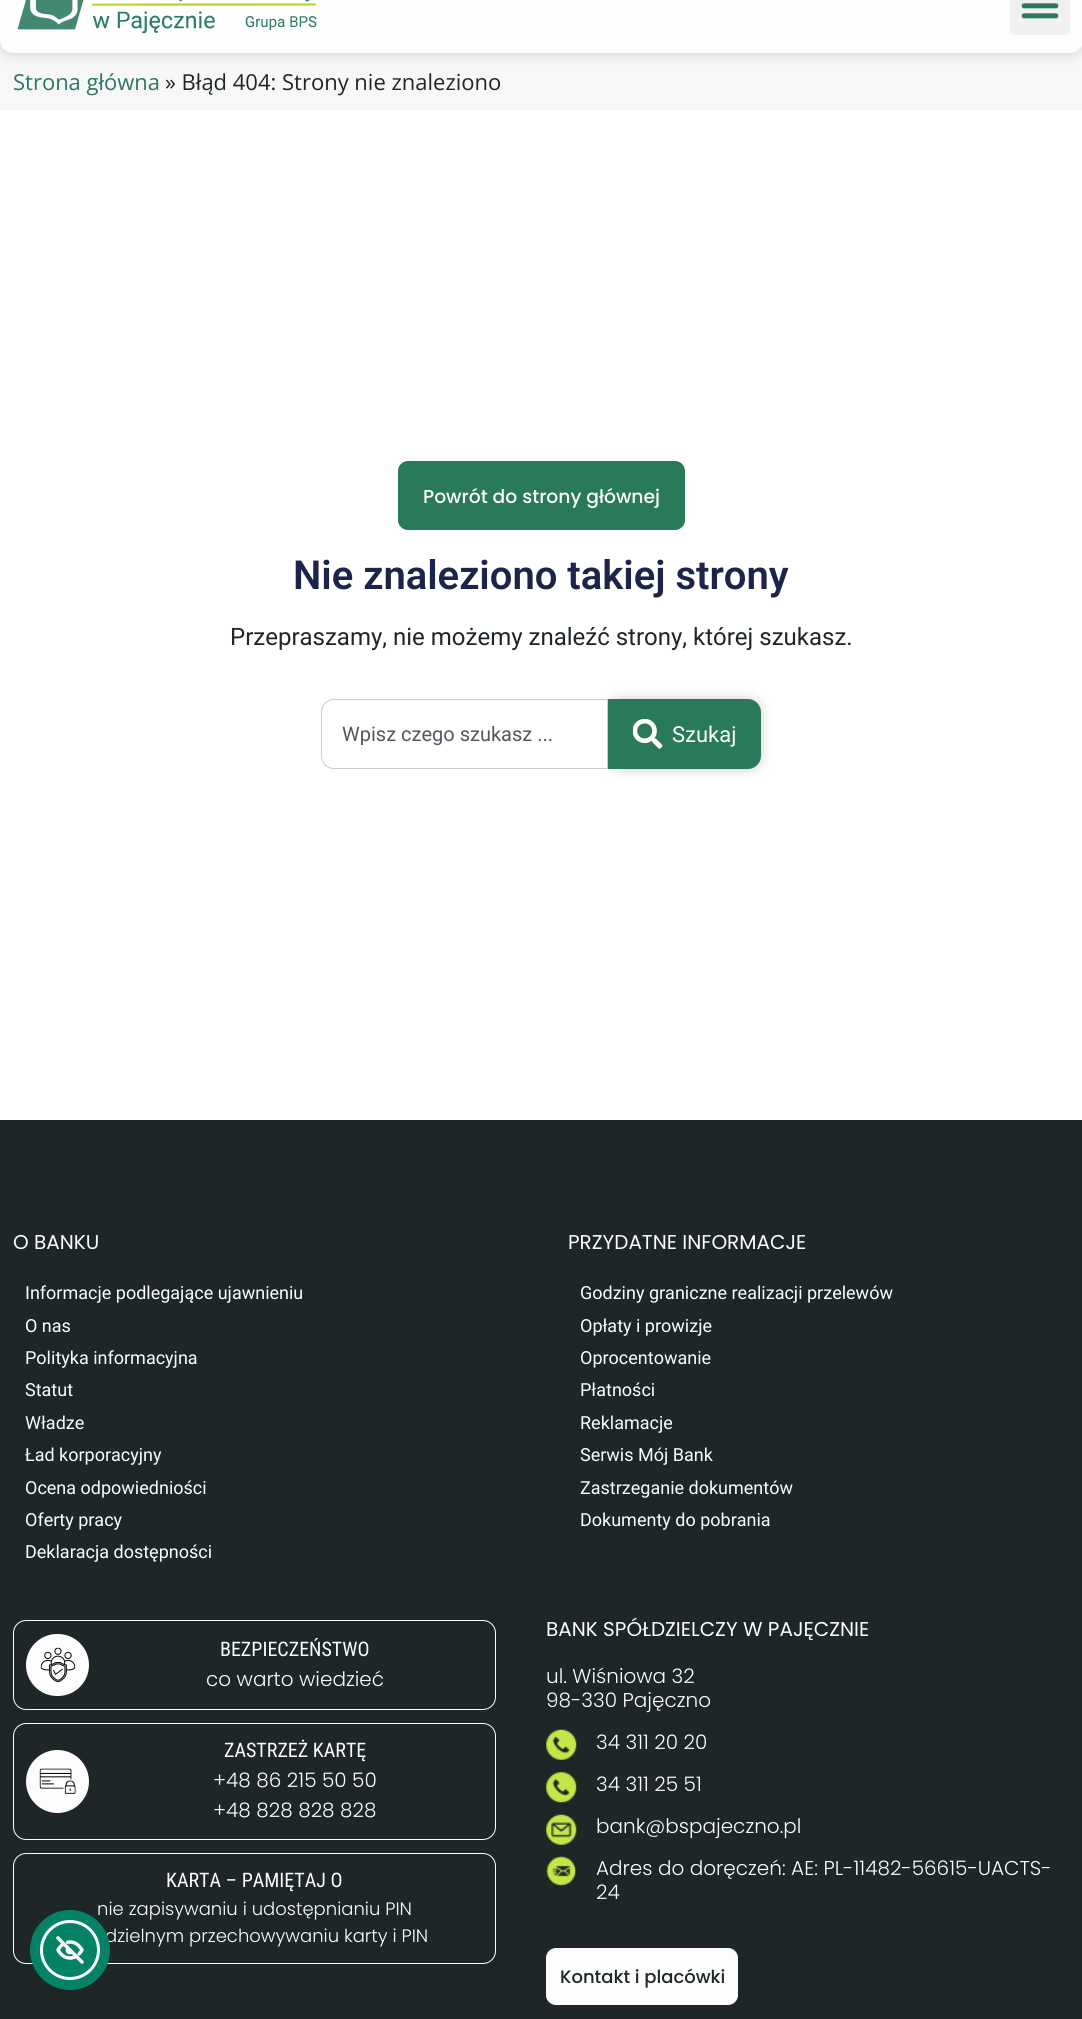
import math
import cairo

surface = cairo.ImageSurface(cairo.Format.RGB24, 1082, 2019)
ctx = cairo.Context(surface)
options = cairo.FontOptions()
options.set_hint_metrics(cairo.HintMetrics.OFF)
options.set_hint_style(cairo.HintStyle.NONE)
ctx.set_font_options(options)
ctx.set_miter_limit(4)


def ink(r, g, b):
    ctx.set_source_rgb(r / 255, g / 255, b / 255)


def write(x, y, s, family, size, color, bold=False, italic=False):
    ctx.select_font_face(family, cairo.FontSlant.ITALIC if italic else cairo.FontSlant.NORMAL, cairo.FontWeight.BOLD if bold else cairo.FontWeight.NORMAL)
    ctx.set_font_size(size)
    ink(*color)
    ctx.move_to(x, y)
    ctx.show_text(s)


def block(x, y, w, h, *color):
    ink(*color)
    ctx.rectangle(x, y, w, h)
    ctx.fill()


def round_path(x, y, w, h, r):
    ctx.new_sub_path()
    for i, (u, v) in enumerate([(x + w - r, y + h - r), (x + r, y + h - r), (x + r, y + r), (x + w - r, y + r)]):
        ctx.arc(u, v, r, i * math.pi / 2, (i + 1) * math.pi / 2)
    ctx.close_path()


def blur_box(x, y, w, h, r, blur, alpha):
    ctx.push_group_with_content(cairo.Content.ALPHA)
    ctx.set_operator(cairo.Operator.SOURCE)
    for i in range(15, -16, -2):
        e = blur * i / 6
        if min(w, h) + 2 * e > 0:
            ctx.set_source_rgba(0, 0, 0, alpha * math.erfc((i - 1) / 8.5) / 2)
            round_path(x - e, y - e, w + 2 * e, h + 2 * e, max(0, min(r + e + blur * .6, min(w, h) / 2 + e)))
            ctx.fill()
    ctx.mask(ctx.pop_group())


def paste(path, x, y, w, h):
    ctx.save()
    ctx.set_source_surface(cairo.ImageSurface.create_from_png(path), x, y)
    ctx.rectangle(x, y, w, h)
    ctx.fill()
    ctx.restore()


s1 = dict(family="Open Sans", size=22, color=(40, 122, 90))
s2 = dict(family="Open Sans", size=22, color=(30, 38, 40))
s3 = dict(family="Poppins Medium", size=18.75, color=(253, 253, 253))
s4 = dict(family="Roboto SemiBold", size=40, color=(28, 36, 75))
s5 = dict(family="Roboto", size=24, color=(30, 38, 40))
s6 = dict(family="Roboto", size=20, color=(81, 89, 98))
s7 = dict(family="Roboto", size=22, color=(253, 253, 253))
s8 = dict(family="Poppins", size=20, color=(253, 253, 253))
s9 = dict(family="Roboto", size=18, color=(253, 253, 253))
s10 = dict(family="Roboto Condensed", size=20, color=(253, 253, 253))
s11 = dict(family="Poppins Light", size=20, color=(253, 253, 253))
s12 = dict(family="Poppins Light", size=18, color=(253, 253, 253))
s13 = dict(family="Poppins Medium", size=18, color=(30, 38, 40))

ink(247, 247, 247)
ctx.paint()
ink(0, 0, 0)
blur_box(0, -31, 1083, 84, 13, 6, 0.2)
ink(253, 253, 253)
round_path(0, -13, 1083, 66, 13)
ctx.fill()
paste("pic1.png", 17, 0, 300, 34)
ink(240, 240, 240)
round_path(1010, -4, 60, 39, 4)
ctx.fill()
paste("pic2.png", 1021, 3, 38, 16)
write(13, 90, "Strona główna", **s1)
write(165, 90, "» Błąd 404: Strony nie znaleziono", **s2)
block(0, 110, 1082, 1010, 255, 255, 255)
ink(40, 122, 90)
round_path(398, 461, 287, 69, 10)
ctx.fill()
write(423, 503, "Powrót do strony głównej", **s3)
write(293, 589, "Nie znaleziono takiej strony", **s4)
write(230, 645, "Przepraszamy, nie możemy znaleźć strony, której szukasz.", **s5)
ink(0, 0, 0)
blur_box(608, 699, 153, 70, 13, 6, 0.2)
ink(255, 255, 255)
ctx.new_path()
ctx.move_to(334, 699.5)
ctx.line_to(607.5, 699.5)
ctx.line_to(607.5, 768.5)
ctx.line_to(334, 768.5)
ctx.curve_to(327, 768.5, 321.5, 763, 321.5, 756)
ctx.line_to(321.5, 712)
ctx.curve_to(321.5, 705, 327, 699.5, 334, 699.5)
ctx.close_path()
ctx.fill_preserve()
ink(205, 205, 205)
ctx.set_line_width(1)
ctx.stroke()
write(342, 741, "Wpisz czego szukasz ...", **s6)
ink(40, 122, 90)
ctx.new_path()
ctx.move_to(608, 699)
ctx.line_to(748, 699)
ctx.curve_to(755, 699, 761, 705, 761, 712)
ctx.line_to(761, 756)
ctx.curve_to(761, 763, 755, 769, 748, 769)
ctx.line_to(608, 769)
ctx.close_path()
ctx.fill()
paste("pic3.png", 633, 719, 30, 30)
write(672, 742, "Szukaj", **s7)
block(0, 1120, 1082, 899, 30, 38, 40)
write(13, 1249, "O BANKU", **s8)
write(25, 1299, "Informacje podlegające ujawnieniu", **s9)
write(25, 1332, "O nas", **s9)
write(25, 1364, "Polityka informacyjna", **s9)
write(25, 1396, "Statut", **s9)
write(25, 1429, "Władze", **s9)
write(25, 1461, "Ład korporacyjny", **s9)
write(25, 1494, "Ocena odpowiedniości", **s9)
write(25, 1526, "Oferty pracy", **s9)
write(25, 1558, "Deklaracja dostępności", **s9)
write(568, 1249, "PRZYDATNE INFORMACJE", **s8)
write(580, 1299, "Godziny graniczne realizacji przelewów", **s9)
write(580, 1332, "Opłaty i prowizje", **s9)
write(580, 1364, "Oprocentowanie", **s9)
write(580, 1396, "Płatności", **s9)
write(580, 1429, "Reklamacje", **s9)
write(580, 1461, "Serwis Mój Bank", **s9)
write(580, 1494, "Zastrzeganie dokumentów", **s9)
write(580, 1526, "Dokumenty do pobrania", **s9)
round_path(13.5, 1620.5, 482, 89, 12.5)
ctx.stroke()
round_path(26, 1634, 63, 62, 31)
ctx.fill()
paste("pic4.png", 40, 1647, 36, 36)
write(220, 1656, "BEZPIECZEŃSTWO", **s10)
write(206, 1686, "co warto wiedzieć", **s11)
round_path(13.5, 1723.5, 482, 116, 12.5)
ctx.stroke()
ctx.arc(57.5, 1781.5, 31.5, 0, 2 * math.pi)
ctx.fill()
paste("pic5.png", 39, 1768, 37, 26)
write(224, 1757, "ZASTRZEŻ KARTĘ", **s10)
write(213, 1787, "+48 86 215 50 50", **s11)
write(213, 1817, "+48 828 828 828", **s11)
round_path(13.5, 1853.5, 482, 110, 12.5)
ctx.stroke()
write(166, 1887, "KARTA – PAMIĘTAJ O", **s10)
write(97, 1915, "nie zapisywaniu i udostępnianiu PIN", **s12)
write(105, 1942, "dzielnym przechowywaniu karty i PIN", **s12)
write(546, 1636, "BANK SPÓŁDZIELCZY W PAJĘCZNIE", **s8)
write(546, 1683, "ul. Wiśniowa 32", **s11)
write(546, 1707, "98-330 Pajęczno", **s11)
paste("pic6.png", 546, 1729, 31, 31)
write(596, 1749, "34 311 20 20", **s11)
paste("pic7.png", 546, 1772, 31, 31)
write(596, 1791, "34 311 25 51", **s11)
paste("pic8.png", 546, 1814, 31, 31)
write(596, 1833, "bank@bspajeczno.pl", **s11)
paste("pic9.png", 546, 1856, 31, 30)
write(596, 1875, "Adres do doręczeń: AE: PL-11482-56615-UACTS-", **s11)
write(596, 1899, "24", **s11)
round_path(546.5, 1948.5, 191, 56, 9.5)
ctx.fill_preserve()
ctx.stroke()
write(560, 1983, "Kontakt i placówki", **s13)
ink(2, 131, 101)
ctx.new_path()
ctx.arc(70, 1950, 40, 0, 2 * math.pi)
ctx.fill()
ctx.arc(70, 1950, 28.5, 0, 2 * math.pi)
ink(255, 255, 255)
ctx.set_line_width(3)
ctx.stroke()
paste("pic10.png", 56, 1936, 28, 28)
surface.write_to_png("screenshot.png")
